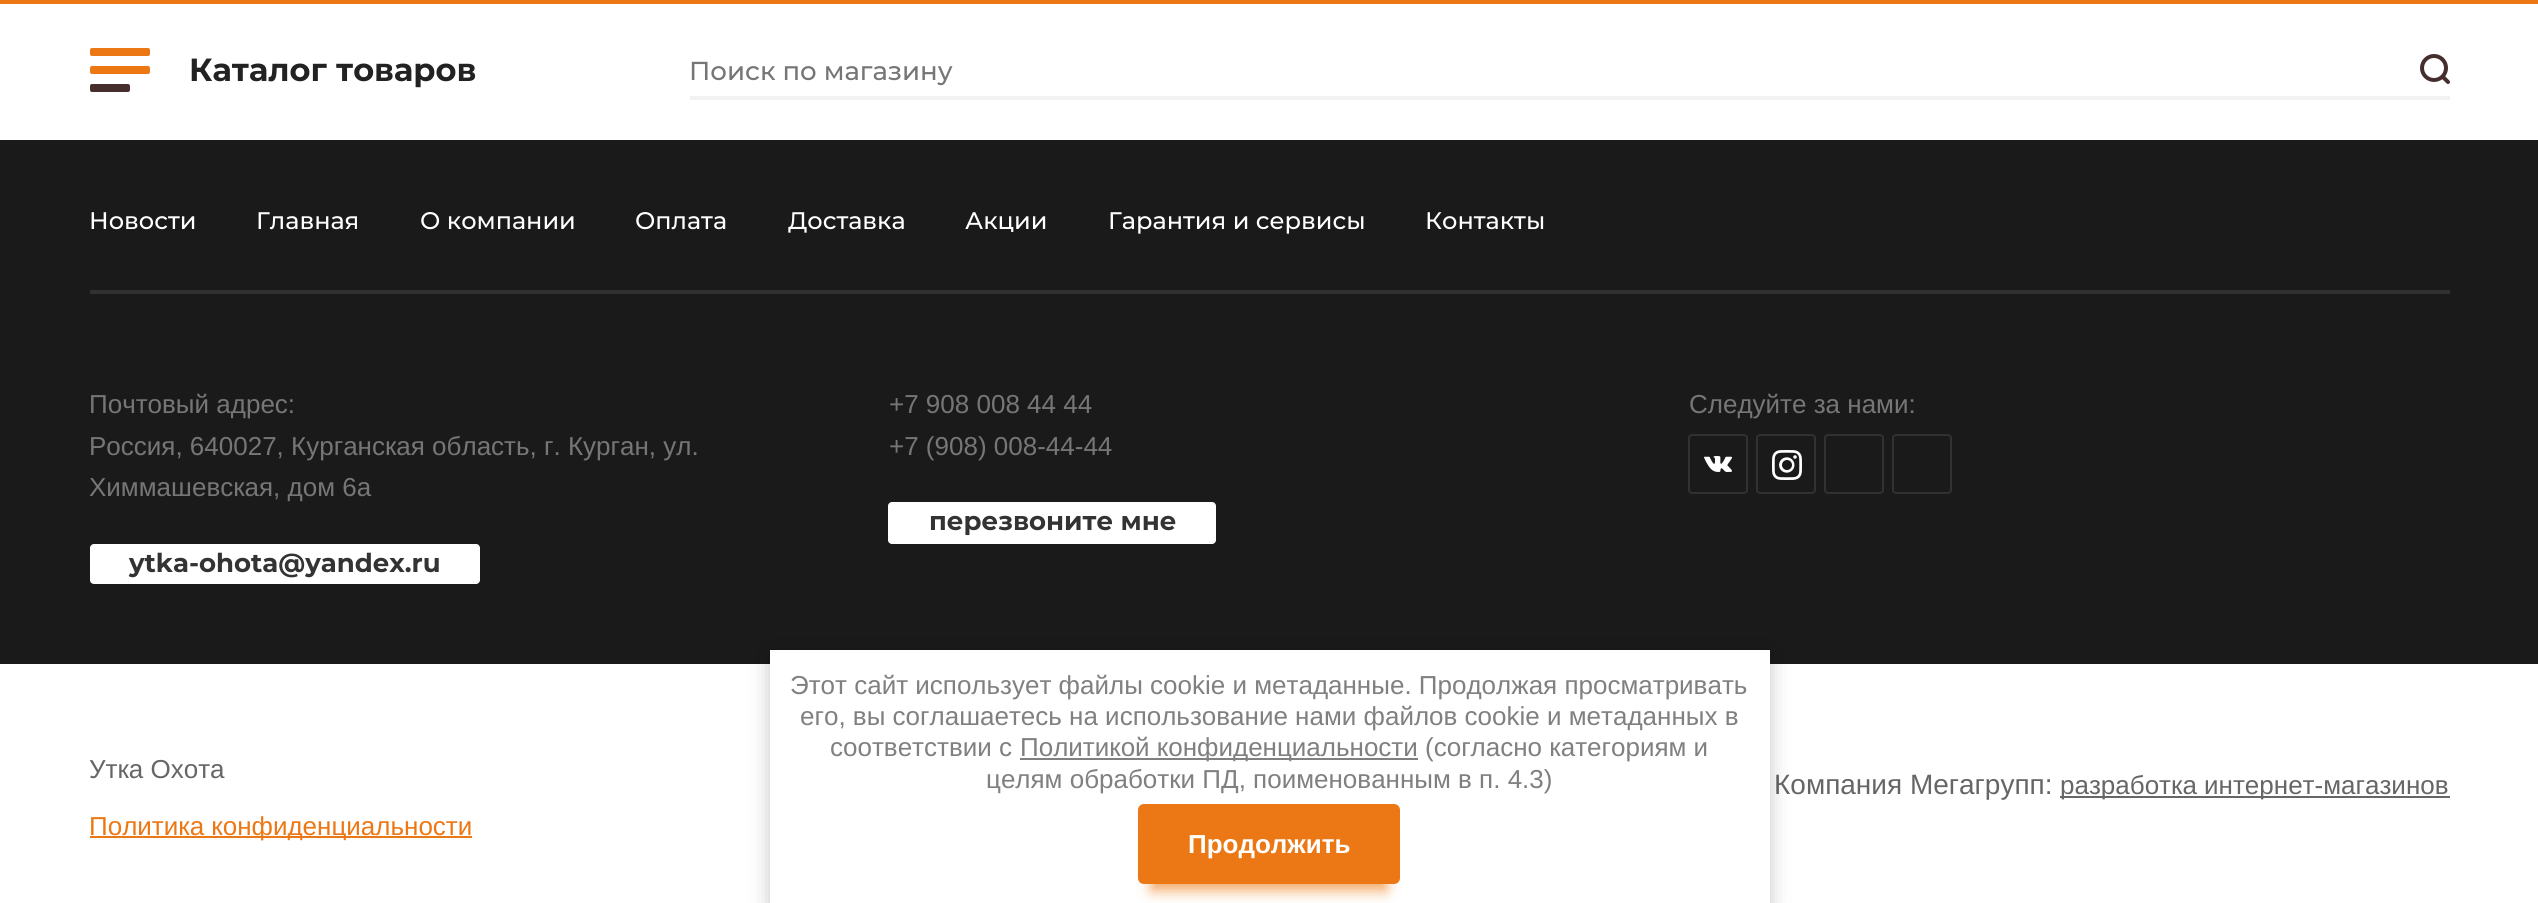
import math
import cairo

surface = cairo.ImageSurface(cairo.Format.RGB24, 2538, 903)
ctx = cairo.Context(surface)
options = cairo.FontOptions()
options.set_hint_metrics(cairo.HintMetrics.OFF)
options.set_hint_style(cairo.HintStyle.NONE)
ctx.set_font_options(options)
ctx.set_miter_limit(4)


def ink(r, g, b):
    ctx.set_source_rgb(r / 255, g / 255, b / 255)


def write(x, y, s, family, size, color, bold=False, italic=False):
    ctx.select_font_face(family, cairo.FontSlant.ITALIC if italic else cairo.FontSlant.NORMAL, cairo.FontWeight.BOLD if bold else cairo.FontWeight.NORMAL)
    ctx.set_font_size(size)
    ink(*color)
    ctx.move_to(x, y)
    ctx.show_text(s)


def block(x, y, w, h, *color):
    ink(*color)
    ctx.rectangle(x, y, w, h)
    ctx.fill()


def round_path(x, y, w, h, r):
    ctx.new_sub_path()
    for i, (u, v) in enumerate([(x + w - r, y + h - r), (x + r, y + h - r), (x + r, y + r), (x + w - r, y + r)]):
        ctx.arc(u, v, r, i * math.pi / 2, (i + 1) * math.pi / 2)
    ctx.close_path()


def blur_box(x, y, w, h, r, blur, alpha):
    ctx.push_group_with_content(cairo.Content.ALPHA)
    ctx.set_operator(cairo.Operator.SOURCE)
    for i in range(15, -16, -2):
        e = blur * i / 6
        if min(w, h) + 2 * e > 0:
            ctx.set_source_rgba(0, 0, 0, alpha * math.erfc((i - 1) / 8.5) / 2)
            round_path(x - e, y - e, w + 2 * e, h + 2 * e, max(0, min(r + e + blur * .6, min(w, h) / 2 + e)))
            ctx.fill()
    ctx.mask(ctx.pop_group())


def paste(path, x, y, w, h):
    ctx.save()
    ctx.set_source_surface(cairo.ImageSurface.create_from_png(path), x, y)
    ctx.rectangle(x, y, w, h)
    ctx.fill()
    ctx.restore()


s1 = dict(family="Montserrat", size=32, color=(34, 34, 34), bold=True)
s2 = dict(family="Montserrat Medium", size=26, color=(118, 118, 118))
s3 = dict(family="Montserrat Medium", size=24, color=(255, 255, 255))
s4 = dict(family="Liberation Sans", size=26, color=(118, 118, 118))
s5 = dict(family="Montserrat", size=26, color=(51, 51, 51), bold=True)
s6 = dict(family="Liberation Sans", size=26, color=(102, 102, 102))
s7 = dict(family="Liberation Sans", size=26, color=(236, 120, 21))
s8 = dict(family="Liberation Sans", size=28, color=(102, 102, 102))
s9 = dict(family="Liberation Sans", size=26, color=(128, 128, 128))
s10 = dict(family="Liberation Sans", size=26, color=(255, 255, 255), bold=True)

ink(255, 255, 255)
ctx.paint()
block(0, 0, 2538, 4, 236, 120, 21)
round_path(90, 66, 60, 8, 2)
ctx.fill()
round_path(90, 48, 60, 8, 2)
ctx.fill()
ink(71, 46, 46)
round_path(90, 84, 40, 8, 2)
ctx.fill()
write(189, 81, "Каталог товаров", **s1)
block(690, 96, 1760, 4, 242, 242, 242)
write(689, 80, "Поиск по магазину", **s2)
paste("pic1.png", 2420, 54, 30, 30)
block(0, 140, 2538, 524, 26, 26, 26)
block(90, 290, 2360, 4, 49, 49, 49)
write(89, 229, "Новости", **s3)
write(256, 229, "Главная", **s3)
write(420, 229, "О компании", **s3)
write(635, 229, "Оплата", **s3)
write(788, 229, "Доставка", **s3)
write(965, 229, "Акции", **s3)
write(1108, 229, "Гарантия и сервисы", **s3)
write(1425, 229, "Контакты", **s3)
write(89, 413, "Почтовый адрес:", **s4)
write(89, 455, "Россия, 640027, Курганская область, г. Курган, ул.", **s4)
write(89, 496, "Химмашевская, дом 6а", **s4)
ink(255, 255, 255)
round_path(90, 544, 390, 40, 4)
ctx.fill()
write(129, 572, "ytka-ohota@yandex.ru", **s5)
write(889, 413, "+7 908 008 44 44", **s4)
write(889, 455, "+7 (908) 008-44-44", **s4)
ink(255, 255, 255)
round_path(888, 502, 328, 42, 4)
ctx.fill()
write(929, 530, "перезвоните мне", **s5)
write(1689, 413, "Следуйте за нами:", **s4)
round_path(1689, 435, 58, 58, 3)
ink(49, 49, 49)
ctx.stroke()
paste("pic2.png", 1704, 456, 28, 16)
round_path(1757, 435, 58, 58, 3)
ctx.stroke()
paste("pic3.png", 1772, 450, 30, 30)
round_path(1825, 435, 58, 58, 3)
ctx.stroke()
round_path(1893, 435, 58, 58, 3)
ctx.stroke()
write(89, 778, "Утка Охота", **s6)
block(90, 836, 382, 2, 236, 120, 21)
write(89, 835, "Политика конфиденциальности", **s7)
write(1774, 794, "Компания Мегагрупп:", **s8)
block(2060, 796, 390, 2, 102, 102, 102)
write(2060, 794, "разработка интернет-магазинов", **s6)
ink(0, 0, 0)
blur_box(770, 652, 1000, 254, 0, 10, 0.23)
block(770, 650, 1000, 253, 255, 255, 255)
write(790, 694, "Этот сайт использует файлы cookie и метаданные. Продолжая просматривать", **s9)
write(800, 725, "его, вы соглашаетесь на использование нами файлов cookie и метаданных в", **s9)
write(830, 756, "соответствии с", **s9)
block(1020, 758, 398, 2, 128, 128, 128)
write(1020, 756, "Политикой конфиденциальности (согласно категориям и", **s9)
write(986, 788, "целям обработки ПД, поименованным в п. 4.3)", **s9)
ink(237, 122, 20)
blur_box(1152, 838, 234, 52, 0, 7, 0.7)
ink(236, 120, 21)
round_path(1138, 804, 262, 80, 6)
ctx.fill()
write(1188, 853, "Продолжить", **s10)
surface.write_to_png("screenshot.png")
